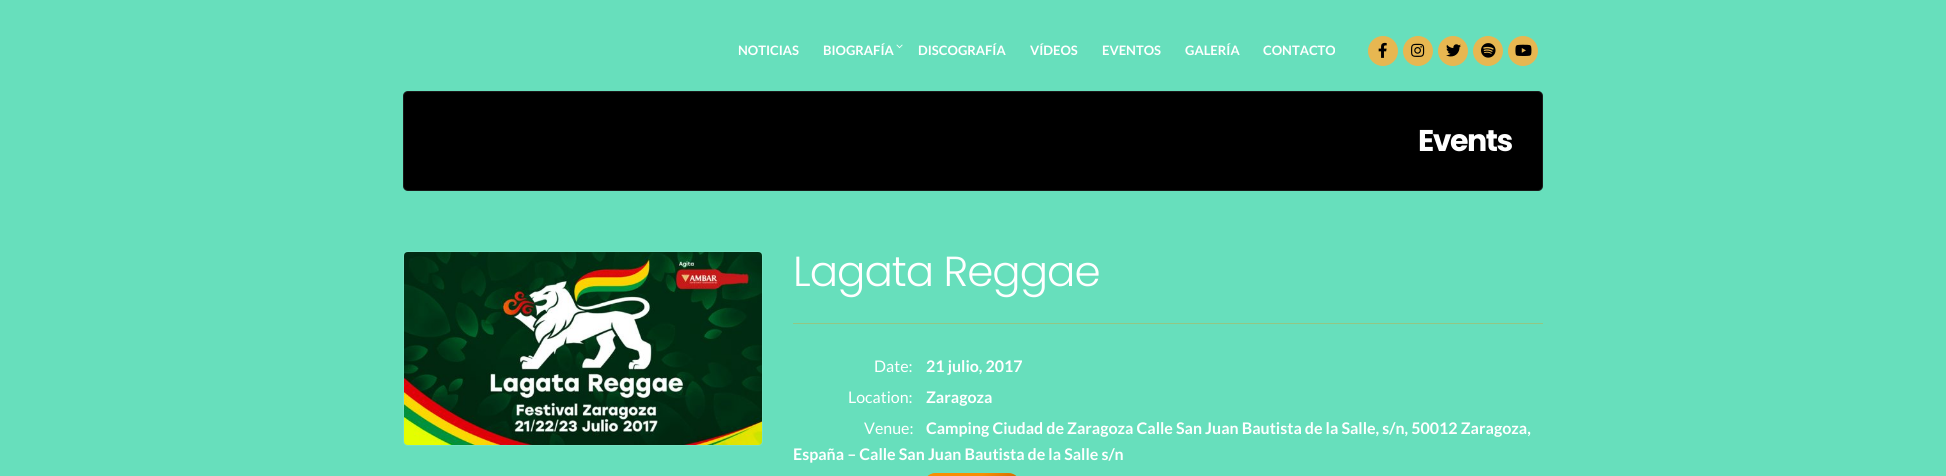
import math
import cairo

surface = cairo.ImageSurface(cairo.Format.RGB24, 1946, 476)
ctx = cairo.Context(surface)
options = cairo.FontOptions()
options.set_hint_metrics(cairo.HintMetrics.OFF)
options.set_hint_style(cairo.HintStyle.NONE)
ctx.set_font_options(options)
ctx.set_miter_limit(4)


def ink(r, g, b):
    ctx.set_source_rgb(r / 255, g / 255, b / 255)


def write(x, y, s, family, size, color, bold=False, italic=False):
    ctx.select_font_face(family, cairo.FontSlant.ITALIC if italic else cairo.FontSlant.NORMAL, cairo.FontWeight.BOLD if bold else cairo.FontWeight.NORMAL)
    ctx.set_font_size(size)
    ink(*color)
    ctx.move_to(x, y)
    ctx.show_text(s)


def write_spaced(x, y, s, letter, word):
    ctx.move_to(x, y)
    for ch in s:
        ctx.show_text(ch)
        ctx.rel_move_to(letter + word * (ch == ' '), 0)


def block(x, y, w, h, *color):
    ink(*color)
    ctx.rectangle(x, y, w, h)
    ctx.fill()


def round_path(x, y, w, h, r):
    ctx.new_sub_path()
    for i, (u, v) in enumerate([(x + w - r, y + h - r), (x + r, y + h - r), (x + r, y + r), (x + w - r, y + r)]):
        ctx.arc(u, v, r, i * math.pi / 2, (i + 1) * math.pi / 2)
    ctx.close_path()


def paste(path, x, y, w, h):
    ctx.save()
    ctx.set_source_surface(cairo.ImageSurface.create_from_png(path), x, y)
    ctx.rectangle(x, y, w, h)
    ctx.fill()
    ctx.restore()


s1 = dict(family="Lato", size=13, color=(255, 255, 255), bold=True)
s2 = dict(family="Lato", size=16, color=(255, 255, 255))
s3 = dict(family="Lato", size=16, color=(255, 255, 255), bold=True)

ink(103, 223, 188)
ctx.paint()
write(738, 55, "NOTICIAS", **s1)
write(823, 55, "BIOGRAFÍA", **s1)
paste("pic1.png", 896, 44, 7, 5)
write(918, 55, "DISCOGRAFÍA", **s1)
write(1030, 55, "VÍDEOS", **s1)
write(1102, 55, "EVENTOS", **s1)
write(1185, 55, "GALERÍA", **s1)
write(1263, 55, "CONTACTO", **s1)
ink(231, 183, 81)
ctx.new_path()
ctx.arc(1383, 51, 15, 0, 2 * math.pi)
ctx.fill()
paste("pic2.png", 1378, 42, 9, 16)
ctx.arc(1418, 51, 15, 0, 2 * math.pi)
ctx.fill()
paste("pic3.png", 1411, 43, 14, 14)
ctx.arc(1453, 51, 15, 0, 2 * math.pi)
ctx.fill()
paste("pic4.png", 1446, 44, 15, 13)
ctx.arc(1488, 51, 15, 0, 2 * math.pi)
ctx.fill()
paste("pic5.png", 1481, 43, 15, 15)
ctx.arc(1523, 51, 15, 0, 2 * math.pi)
ctx.fill()
paste("pic6.png", 1515, 44, 17, 12)
ink(0, 0, 0)
round_path(403, 91, 1140, 100, 5)
ctx.fill()
round_path(403.5, 91.5, 1139, 99, 4.5)
ctx.set_source_rgba(1, 1, 1, 0.1)
ctx.set_line_width(1)
ctx.stroke()
ctx.select_font_face("Poppins", cairo.FontSlant.NORMAL, cairo.FontWeight.BOLD)
ctx.set_font_size(30)
ink(255, 255, 255)
write_spaced(1418, 151, "Events", -1.5, 0)
round_path(403.5, 251.5, 359, 194, 4.5)
ink(118, 226, 195)
ctx.stroke()
paste("pic7.png", 404, 252, 358, 193)
ctx.select_font_face("Poppins Light")
ctx.set_font_size(42)
ink(255, 255, 255)
write_spaced(793, 286, "Lagata Reggae", -1, 0)
block(793, 323, 750, 1, 146, 199, 132)
write(874, 372, "Date:", **s2)
write(926, 372, "21 julio, 2017", **s3)
write(848, 403, "Location:", **s2)
write(926, 403, "Zaragoza", **s3)
write(864, 434, "Venue:", **s2)
write(926, 434, "Camping Ciudad de Zaragoza Calle San Juan Bautista de la Salle, s/n, 50012 Zaragoza,", **s3)
write(793, 460, "España – Calle San Juan Bautista de la Salle s/n", **s3)
ink(247, 142, 3)
round_path(923, 473, 98, 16, 13)
ctx.fill()
gradient = cairo.LinearGradient(950, 454, 994, 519)
gradient.add_color_stop_rgba(0.45, 0.969, 0.557, 0.012, 0.72)
gradient.add_color_stop_rgba(1, 0.525, 0.141, 0.024, 0.64)
ctx.set_source(gradient)
round_path(923, 473, 98, 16, 13)
ctx.fill()
surface.write_to_png("screenshot.png")
